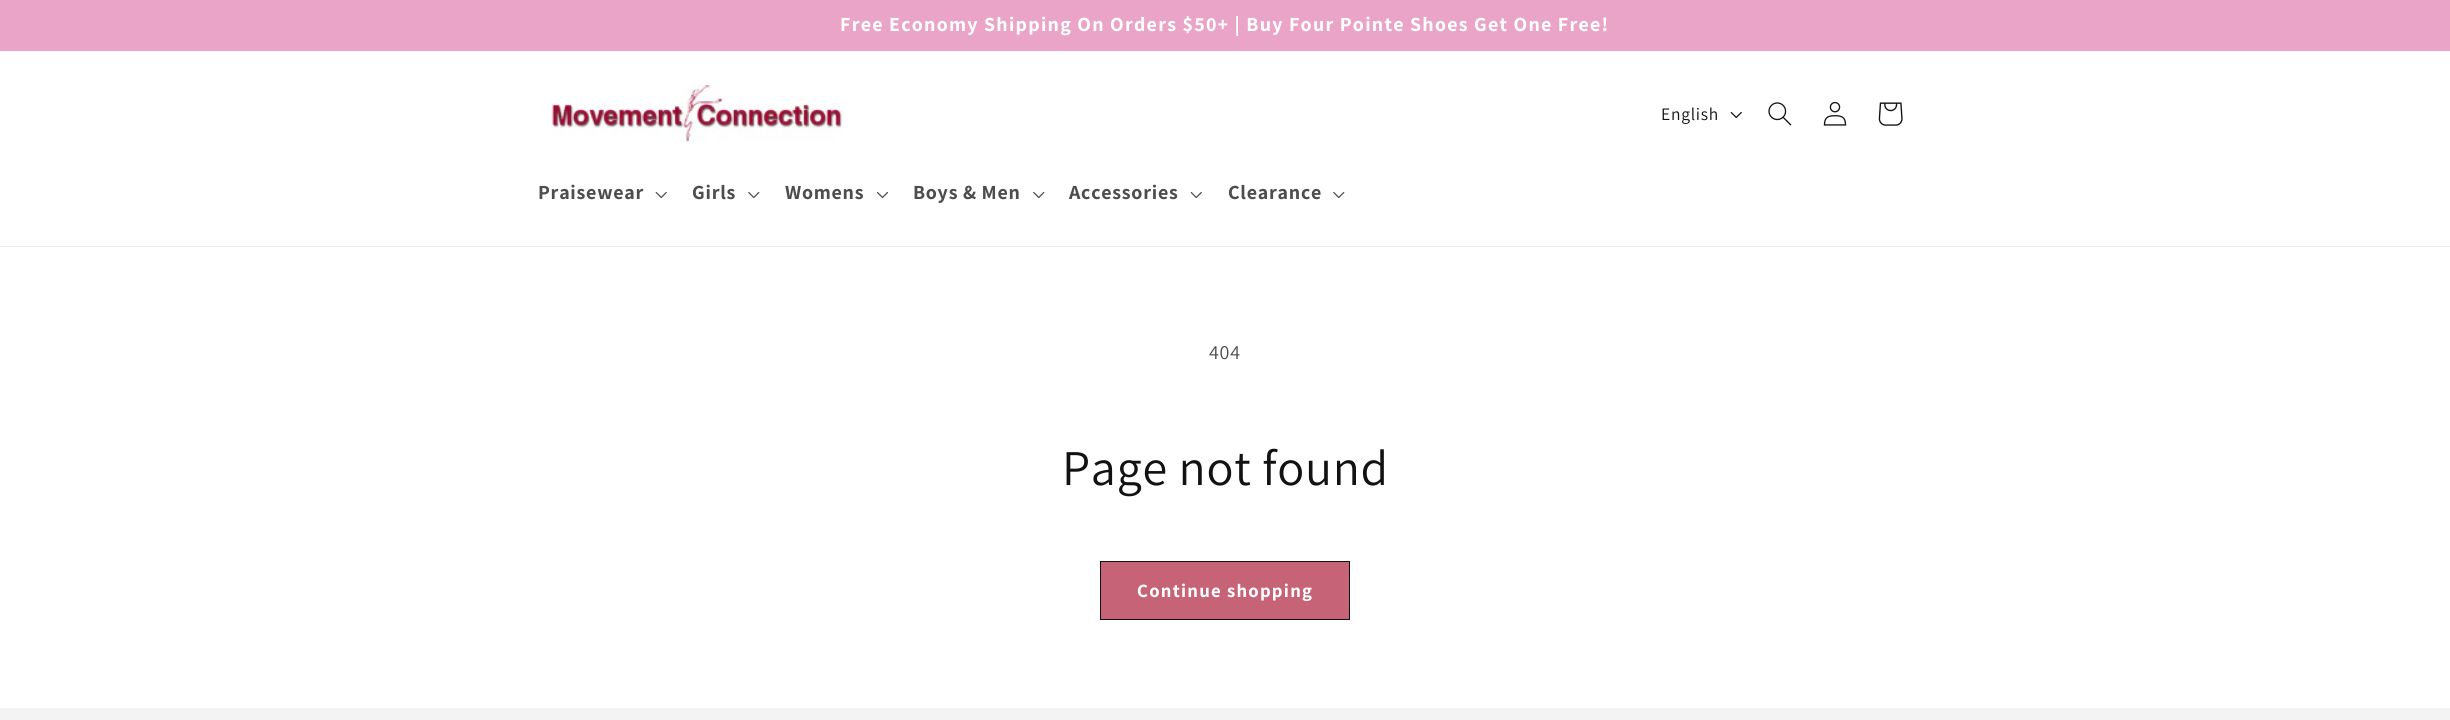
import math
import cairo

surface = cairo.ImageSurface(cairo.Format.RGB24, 2450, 720)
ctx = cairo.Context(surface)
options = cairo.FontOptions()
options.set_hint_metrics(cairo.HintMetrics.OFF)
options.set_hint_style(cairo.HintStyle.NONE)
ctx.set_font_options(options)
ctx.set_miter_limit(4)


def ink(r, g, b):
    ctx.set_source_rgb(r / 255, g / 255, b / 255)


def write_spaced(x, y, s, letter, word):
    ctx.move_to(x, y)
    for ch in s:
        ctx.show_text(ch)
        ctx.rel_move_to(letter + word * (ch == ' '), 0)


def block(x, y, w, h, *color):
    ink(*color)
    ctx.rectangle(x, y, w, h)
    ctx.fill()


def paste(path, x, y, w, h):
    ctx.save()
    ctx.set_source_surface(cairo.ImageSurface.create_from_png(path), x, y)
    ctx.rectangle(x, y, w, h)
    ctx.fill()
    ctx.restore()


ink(255, 255, 255)
ctx.paint()
block(0, 0, 2450, 51, 234, 164, 199)
ctx.select_font_face("Assistant", cairo.FontSlant.NORMAL, cairo.FontWeight.BOLD)
ctx.set_font_size(20)
ink(255, 255, 255)
write_spaced(840, 31, "Free Economy Shipping On Orders $50+ | Buy Four Pointe Shoes Get One Free!", 1.25, 0)
block(0, 246, 2450, 1, 236, 236, 236)
paste("pic1.png", 550, 85, 294, 58)
ctx.select_font_face("Assistant")
ctx.set_font_size(17.5)
ink(18, 18, 18)
write_spaced(1661, 120, "English", 0.75, 0)
paste("pic2.png", 1730, 111, 12, 8)
paste("pic3.png", 1768, 102, 24, 24)
paste("pic4.png", 1823, 101, 24, 25)
paste("pic5.png", 1878, 102, 25, 24)
ctx.select_font_face("Assistant", cairo.FontSlant.NORMAL, cairo.FontWeight.BOLD)
ctx.set_font_size(20)
ink(77, 77, 77)
write_spaced(538, 199, "Praisewear", 0.75, 0)
paste("pic6.png", 655, 191, 12, 8)
write_spaced(692, 199, "Girls", 0.75, 0)
paste("pic7.png", 748, 191, 12, 8)
write_spaced(785, 199, "Womens", 0.75, 0)
paste("pic8.png", 876, 191, 13, 8)
write_spaced(913, 199, "Boys & Men", 0.75, 0)
paste("pic7.png", 1033, 191, 12, 8)
write_spaced(1069, 199, "Accessories", 0.75, 0)
paste("pic6.png", 1190, 191, 12, 8)
write_spaced(1228, 199, "Clearance", 0.75, 0)
paste("pic7.png", 1333, 191, 12, 8)
ctx.select_font_face("Assistant")
write_spaced(1209, 359, "404", 0.75, 0)
ctx.set_font_size(50)
ink(18, 18, 18)
write_spaced(1062, 485, "Page not found", 0.75, 0)
block(1101, 562, 248, 57, 199, 99, 118)
ctx.rectangle(1100.5, 561.5, 249, 58)
ink(18, 18, 18)
ctx.set_line_width(1)
ctx.stroke()
ctx.select_font_face("Assistant", cairo.FontSlant.NORMAL, cairo.FontWeight.BOLD)
ctx.set_font_size(18.75)
ink(255, 255, 255)
write_spaced(1137, 597, "Continue shopping", 1.25, 0)
block(0, 708, 2450, 12, 243, 243, 243)
surface.write_to_png("screenshot.png")
